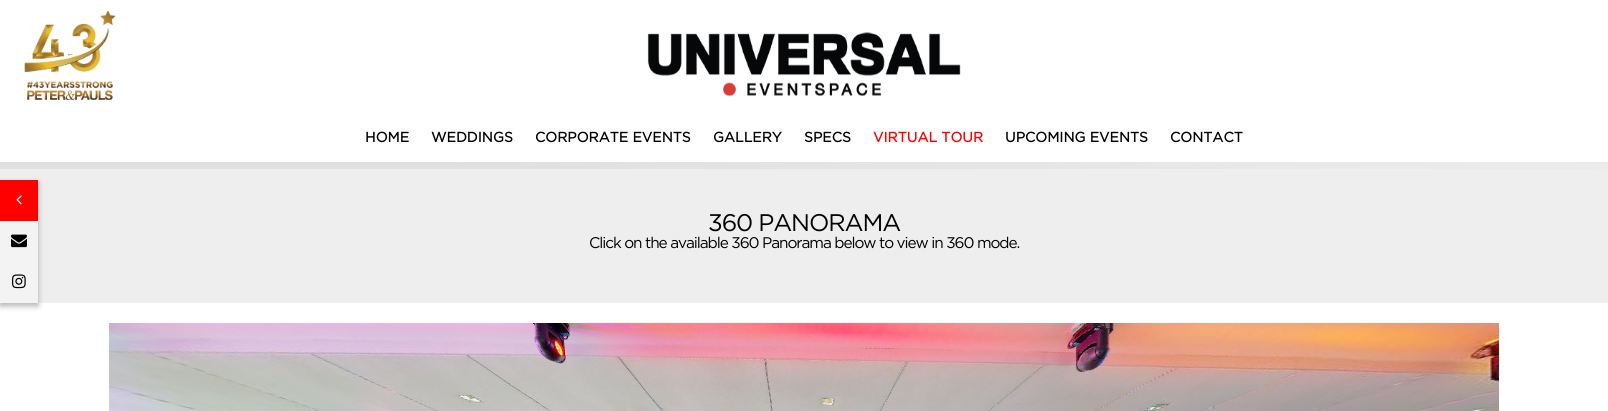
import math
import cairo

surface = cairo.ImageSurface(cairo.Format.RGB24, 1608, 411)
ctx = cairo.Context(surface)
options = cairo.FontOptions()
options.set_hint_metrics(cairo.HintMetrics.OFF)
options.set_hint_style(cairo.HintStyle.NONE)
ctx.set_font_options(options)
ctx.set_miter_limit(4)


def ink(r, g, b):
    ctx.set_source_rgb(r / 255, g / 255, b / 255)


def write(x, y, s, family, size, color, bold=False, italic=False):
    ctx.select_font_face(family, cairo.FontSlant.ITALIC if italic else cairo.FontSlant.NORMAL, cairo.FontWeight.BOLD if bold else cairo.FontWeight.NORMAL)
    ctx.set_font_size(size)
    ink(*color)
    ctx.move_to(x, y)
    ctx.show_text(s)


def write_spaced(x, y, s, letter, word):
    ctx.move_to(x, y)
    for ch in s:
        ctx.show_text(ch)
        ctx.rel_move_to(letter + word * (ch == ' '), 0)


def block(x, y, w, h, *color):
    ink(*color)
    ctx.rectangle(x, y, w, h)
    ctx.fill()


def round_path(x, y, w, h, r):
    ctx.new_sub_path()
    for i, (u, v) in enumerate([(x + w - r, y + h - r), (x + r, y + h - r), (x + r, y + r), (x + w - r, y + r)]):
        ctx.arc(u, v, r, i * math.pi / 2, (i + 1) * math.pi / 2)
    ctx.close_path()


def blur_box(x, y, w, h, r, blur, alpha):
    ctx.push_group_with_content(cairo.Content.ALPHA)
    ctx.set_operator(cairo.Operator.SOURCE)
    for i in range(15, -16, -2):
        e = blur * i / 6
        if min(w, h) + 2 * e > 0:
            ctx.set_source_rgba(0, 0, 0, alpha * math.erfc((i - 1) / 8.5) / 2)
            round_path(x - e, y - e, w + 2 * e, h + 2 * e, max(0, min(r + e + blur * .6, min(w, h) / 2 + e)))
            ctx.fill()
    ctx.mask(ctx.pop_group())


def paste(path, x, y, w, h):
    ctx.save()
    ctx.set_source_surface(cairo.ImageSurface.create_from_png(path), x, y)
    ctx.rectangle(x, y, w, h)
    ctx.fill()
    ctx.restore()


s1 = dict(family="Gotham", size=14, color=(0, 0, 0), bold=True)
s2 = dict(family="Gotham", size=14, color=(255, 0, 0), bold=True)

ink(255, 255, 255)
ctx.paint()
paste("pic1.png", 24, 10, 92, 90)
paste("pic2.png", 647, 32, 314, 64)
paste("pic3.png", 0, 162, 1608, 7)
write(365, 142, "HOME", **s1)
write(431, 142, "WEDDINGS", **s1)
write(535, 142, "CORPORATE EVENTS", **s1)
write(713, 142, "GALLERY", **s1)
write(804, 142, "SPECS", **s1)
write(873, 142, "VIRTUAL TOUR", **s2)
write(1005, 142, "UPCOMING EVENTS", **s1)
write(1170, 142, "CONTACT", **s1)
block(0, 169, 1608, 134, 238, 238, 239)
ink(0, 0, 0)
blur_box(0, 183, 38, 123, 0, 3, 0.3)
block(0, 221, 38, 82, 243, 243, 243)
block(0, 180, 38, 41, 255, 0, 0)
paste("pic4.png", 16, 195, 6, 10)
paste("pic5.png", 11, 234, 16, 14)
paste("pic6.png", 12, 274, 14, 15)
ctx.select_font_face("Gotham")
ctx.set_font_size(24)
ink(0, 0, 0)
write_spaced(708, 231, "360 PANORAMA", -1.08, 0)
ctx.set_font_size(15.4)
write_spaced(589, 248, "Click on the available 360 Panorama below to view in 360 mode.", -1.08, 0)
paste("pic7.png", 109, 323, 1390, 88)
surface.write_to_png("screenshot.png")
